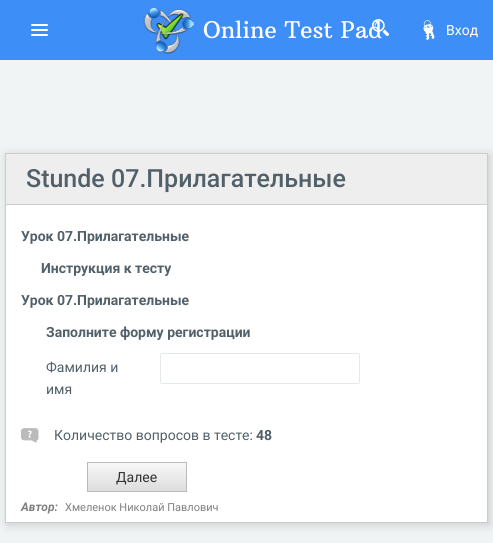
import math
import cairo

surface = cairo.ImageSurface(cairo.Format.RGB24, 493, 543)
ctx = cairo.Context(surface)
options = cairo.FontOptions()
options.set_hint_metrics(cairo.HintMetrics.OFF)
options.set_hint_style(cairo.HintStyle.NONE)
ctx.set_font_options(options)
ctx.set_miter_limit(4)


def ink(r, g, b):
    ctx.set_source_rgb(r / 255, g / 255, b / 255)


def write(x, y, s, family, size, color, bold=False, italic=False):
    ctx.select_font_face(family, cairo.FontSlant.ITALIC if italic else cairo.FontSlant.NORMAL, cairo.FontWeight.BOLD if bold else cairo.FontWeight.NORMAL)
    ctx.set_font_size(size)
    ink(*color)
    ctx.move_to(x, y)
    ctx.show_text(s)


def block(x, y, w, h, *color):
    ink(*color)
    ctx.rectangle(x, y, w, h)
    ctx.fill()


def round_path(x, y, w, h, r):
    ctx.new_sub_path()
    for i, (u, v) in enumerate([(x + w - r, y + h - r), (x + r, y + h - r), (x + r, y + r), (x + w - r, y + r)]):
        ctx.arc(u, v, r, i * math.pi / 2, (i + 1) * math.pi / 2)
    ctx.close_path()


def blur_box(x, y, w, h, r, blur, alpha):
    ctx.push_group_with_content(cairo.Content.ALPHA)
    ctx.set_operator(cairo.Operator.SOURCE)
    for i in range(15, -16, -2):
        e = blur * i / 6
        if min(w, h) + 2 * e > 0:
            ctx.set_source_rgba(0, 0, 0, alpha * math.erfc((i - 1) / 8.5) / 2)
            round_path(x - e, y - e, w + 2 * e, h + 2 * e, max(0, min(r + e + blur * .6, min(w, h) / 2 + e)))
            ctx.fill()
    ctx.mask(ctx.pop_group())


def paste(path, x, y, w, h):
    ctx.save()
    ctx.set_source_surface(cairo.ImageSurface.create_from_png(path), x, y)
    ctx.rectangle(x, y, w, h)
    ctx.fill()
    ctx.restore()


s1 = dict(family="Arbutus Slab", size=23, color=(255, 255, 255))
s2 = dict(family="Roboto", size=14, color=(255, 255, 255))
s3 = dict(family="Roboto Medium", size=25, color=(82, 96, 105))
s4 = dict(family="Roboto", size=14, color=(82, 96, 105), bold=True)
s5 = dict(family="Roboto", size=14, color=(82, 96, 105))
s6 = dict(family="Roboto", size=14, color=(51, 51, 51))
s7 = dict(family="Roboto", size=12, color=(128, 128, 128), bold=True, italic=True)
s8 = dict(family="Roboto", size=11, color=(128, 128, 128))

ink(62, 142, 247)
ctx.paint()
ink(255, 255, 255)
round_path(31, 24, 17, 2, 1)
ctx.fill()
round_path(31, 29, 17, 2, 1)
ctx.fill()
round_path(31, 34, 17, 2, 1)
ctx.fill()
paste("pic1.png", 143, 7, 51, 47)
write(203, 38, "Online Test Pad", **s1)
paste("pic2.png", 372, 19, 17, 17)
paste("pic3.png", 423, 20, 12, 21)
write(446, 35, "Вход", **s2)
block(0, 60, 493, 483, 241, 244, 245)
ink(204, 204, 204)
blur_box(7, 155, 483, 370, 0, 5, 1)
block(6, 205, 481, 317, 255, 255, 255)
ctx.rectangle(5.5, 153.5, 482, 369)
ink(204, 204, 204)
ctx.set_line_width(1)
ctx.stroke()
block(6, 154, 481, 50, 238, 238, 238)
block(6, 204, 481, 1, 204, 204, 204)
write(26, 187, "Stunde 07.Прилагательные", **s3)
write(21, 241, "Урок 07.Прилагательные", **s4)
write(41, 273, "Инструкция к тесту", **s4)
write(21, 305, "Урок 07.Прилагательные", **s4)
write(46, 337, "Заполните форму регистрации", **s4)
write(46, 372, "Фамилия и", **s5)
write(46, 394, "имя", **s5)
round_path(160.5, 353.5, 199, 30, 1.5)
ink(228, 234, 236)
ctx.stroke()
paste("pic4.png", 21, 428, 18, 15)
write(54, 440, "Количество вопросов в тесте:", **s5)
write(256, 440, "48", **s4)
gradient = cairo.LinearGradient(137, 491, 137, 463)
gradient.add_color_stop_rgba(0, 0.867, 0.867, 0.867, 1)
gradient.add_color_stop_rgba(1, 0.969, 0.969, 0.969, 1)
ctx.set_source(gradient)
ctx.rectangle(88, 463, 98, 28)
ctx.fill()
ctx.rectangle(87.5, 462.5, 99, 29)
ink(187, 187, 187)
ctx.stroke()
write(116, 482, "Далее", **s6)
write(21, 511, "Автор:", **s7)
write(65, 511, "Хмеленок Николай Павлович", **s8)
surface.write_to_png("screenshot.png")
